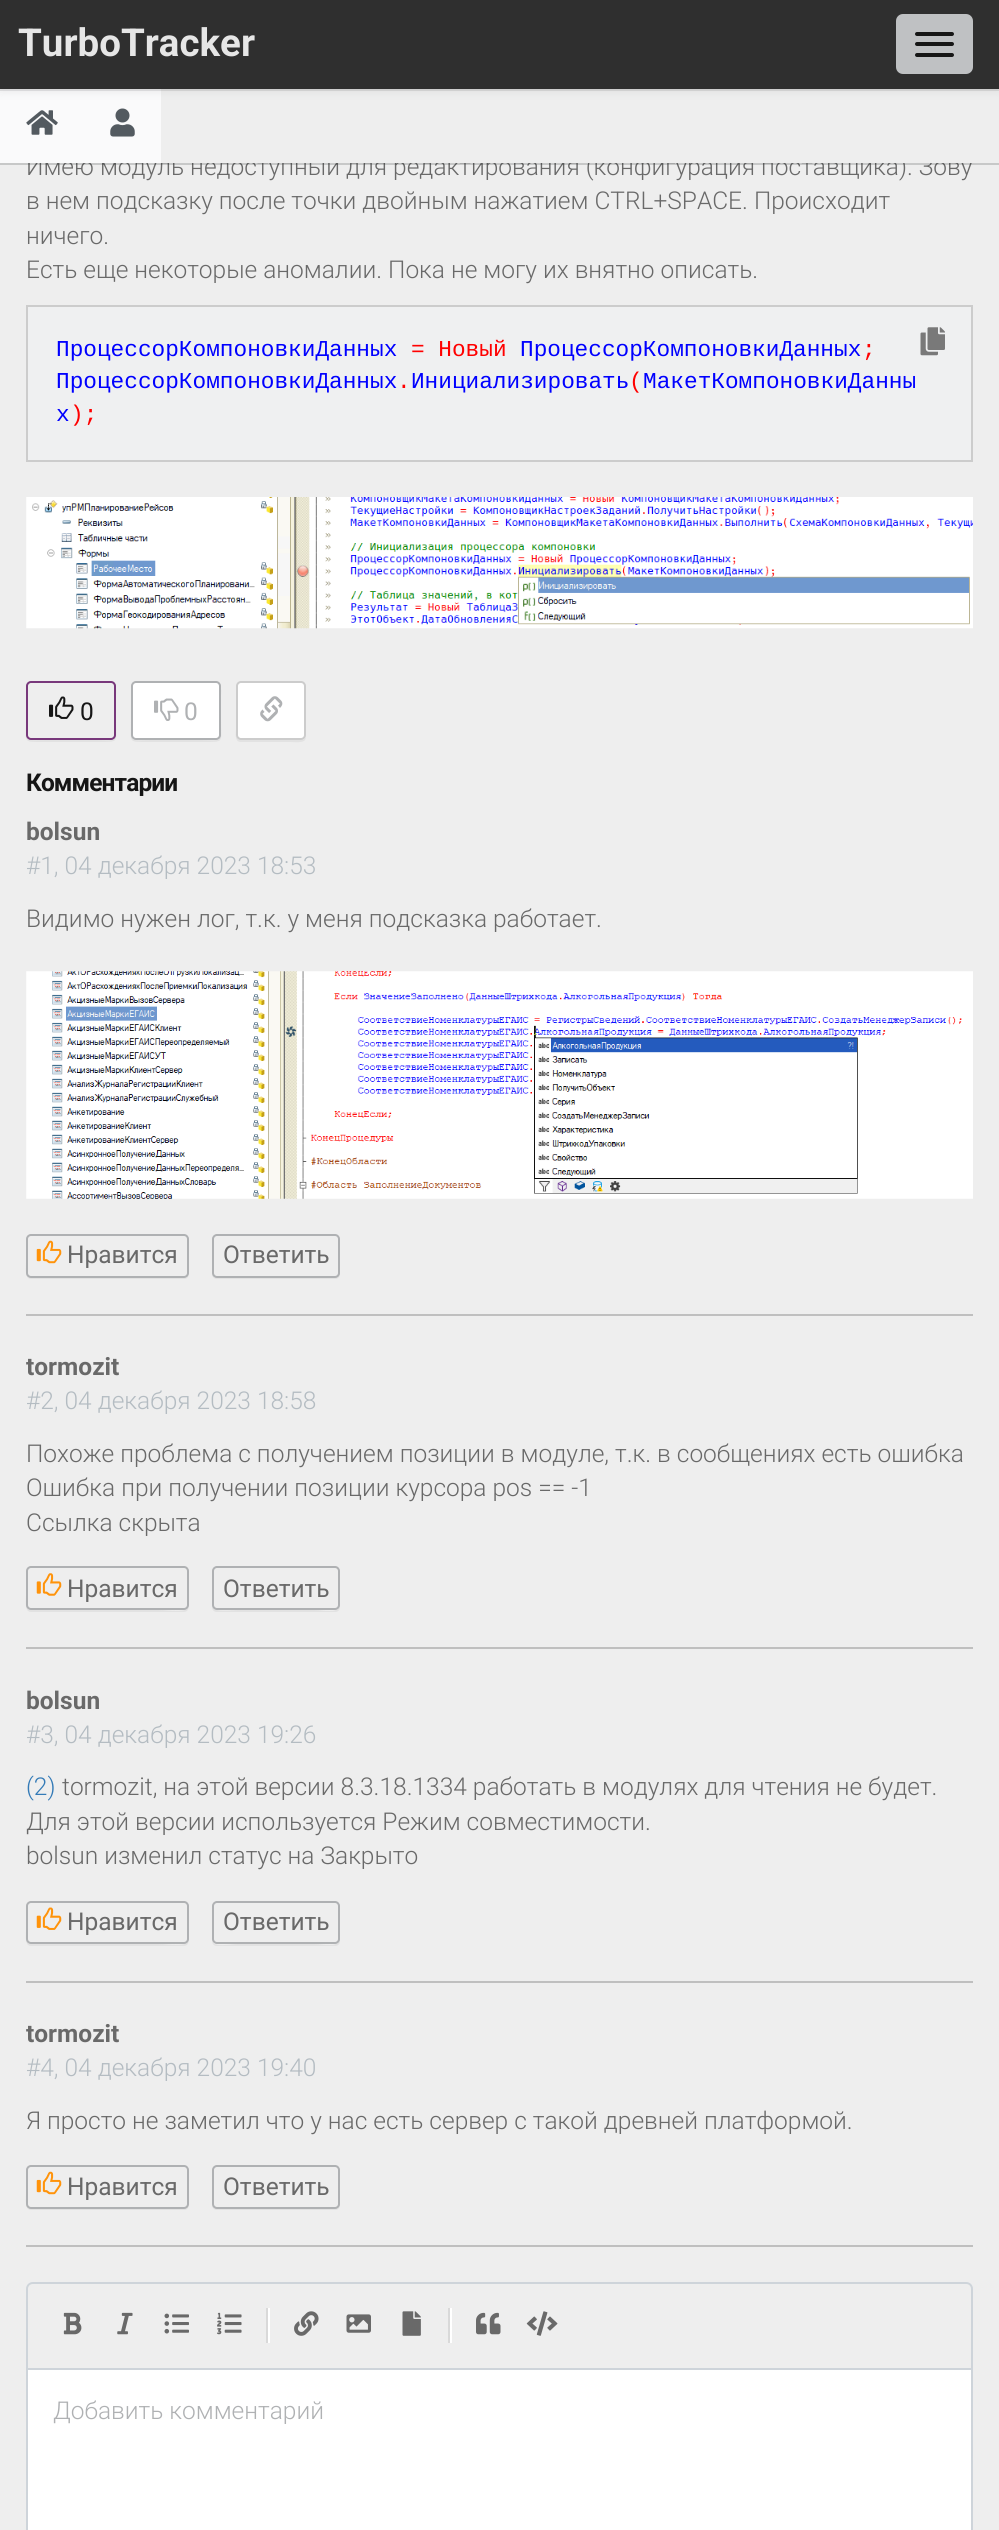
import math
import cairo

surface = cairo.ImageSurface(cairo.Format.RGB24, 999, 2530)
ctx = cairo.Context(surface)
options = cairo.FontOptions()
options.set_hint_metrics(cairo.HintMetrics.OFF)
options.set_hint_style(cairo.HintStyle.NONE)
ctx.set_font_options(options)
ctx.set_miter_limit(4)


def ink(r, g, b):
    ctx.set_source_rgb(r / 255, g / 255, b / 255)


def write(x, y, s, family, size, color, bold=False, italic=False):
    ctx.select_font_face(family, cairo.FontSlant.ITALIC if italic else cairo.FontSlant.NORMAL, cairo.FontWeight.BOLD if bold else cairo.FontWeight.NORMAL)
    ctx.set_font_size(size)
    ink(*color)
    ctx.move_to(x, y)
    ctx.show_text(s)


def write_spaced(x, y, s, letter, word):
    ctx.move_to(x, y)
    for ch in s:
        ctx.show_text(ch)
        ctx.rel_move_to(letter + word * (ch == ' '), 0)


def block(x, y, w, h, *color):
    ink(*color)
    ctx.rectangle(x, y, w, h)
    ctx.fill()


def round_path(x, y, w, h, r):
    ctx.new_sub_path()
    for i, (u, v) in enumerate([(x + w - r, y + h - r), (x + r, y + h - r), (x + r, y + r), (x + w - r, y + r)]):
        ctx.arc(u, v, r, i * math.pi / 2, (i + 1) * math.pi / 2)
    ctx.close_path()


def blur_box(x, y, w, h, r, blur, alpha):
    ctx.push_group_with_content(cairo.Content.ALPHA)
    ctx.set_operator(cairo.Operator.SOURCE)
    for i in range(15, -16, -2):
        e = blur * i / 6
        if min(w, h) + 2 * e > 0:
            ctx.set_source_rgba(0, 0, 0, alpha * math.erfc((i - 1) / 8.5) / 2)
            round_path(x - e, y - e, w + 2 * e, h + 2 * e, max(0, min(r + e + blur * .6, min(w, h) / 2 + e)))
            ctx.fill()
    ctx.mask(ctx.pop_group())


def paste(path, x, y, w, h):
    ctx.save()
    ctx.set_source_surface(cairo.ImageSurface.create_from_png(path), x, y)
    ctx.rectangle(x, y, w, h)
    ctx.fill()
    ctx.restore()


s1 = dict(family="Roboto Light", size=24.5, color=(105, 105, 105))
s2 = dict(family="Roboto", size=38.5, color=(230, 230, 230), bold=True)
s3 = dict(family="Liberation Mono", size=22.75, color=(0, 0, 255))
s4 = dict(family="Liberation Mono", size=22.75, color=(255, 0, 0))
s5 = dict(family="Roboto", size=24.5, color=(22, 22, 22))
s6 = dict(family="Roboto", size=24.5, color=(175, 177, 179))
s7 = dict(family="Roboto", size=24.5, color=(105, 105, 105), bold=True)
s8 = dict(family="Roboto Light", size=24.5, color=(180, 188, 194))
s9 = dict(family="Roboto", size=24.5, color=(105, 105, 105))
s10 = dict(family="Roboto Light", size=24.5, color=(51, 122, 183))
s11 = dict(family="Roboto Light", size=24.5, color=(175, 177, 179))

ink(238, 238, 238)
ctx.paint()
write(26, 175, "Имею модуль недоступный для редактирования (конфигурация поставщика). Зову", **s1)
block(0, 89, 161, 74, 250, 250, 251)
ink(59, 64, 69)
blur_box(0, 2, 999, 89, 0, 5, 0.1)
ctx.set_source_rgba(0.047, 0.051, 0.055, 0.1)
ctx.rectangle(0, 89, 999, 2)
ctx.fill()
block(0, 0, 999, 89, 47, 47, 47)
write(18, 56, "TurboTracker", **s2)
ink(191, 193, 195)
round_path(896, 14, 77, 60, 7)
ctx.fill()
ink(22, 22, 22)
round_path(915, 32, 39, 4, 2)
ctx.fill()
round_path(915, 42, 39, 4, 2)
ctx.fill()
round_path(915, 53, 39, 4, 2)
ctx.fill()
ctx.set_source_rgba(0.231, 0.251, 0.271, 0.1)
ctx.new_path()
ctx.move_to(0, 163)
ctx.line_to(0, 165)
ctx.line_to(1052, 165)
ctx.line_to(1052, 89)
ctx.line_to(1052, 163)
ctx.close_path()
ctx.fill()
ctx.set_source_rgba(0.047, 0.051, 0.055, 0.1)
ctx.new_path()
ctx.move_to(0, 163)
ctx.line_to(0, 165)
ctx.line_to(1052, 165)
ctx.line_to(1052, 89)
ctx.line_to(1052, 163)
ctx.close_path()
ctx.fill()
block(161, 155, 812, 8, 238, 238, 238)
paste("pic1.png", 26, 110, 32, 25)
paste("pic2.png", 110, 108, 25, 29)
write(26, 209, "в нем подсказку после точки двойным нажатием CTRL+SPACE. Происходит", **s1)
write(26, 244, "ничего.", **s1)
write(26, 278, "Есть еще некоторые аномалии. Пока не могу их внятно описать.", **s1)
ink(239, 240, 241)
ctx.rectangle(27, 306, 945, 155)
ctx.fill_preserve()
ink(204, 204, 204)
ctx.stroke()
write(56, 356, "ПроцессорКомпоновкиДанных", **s3)
write(411, 356, "= Новый", **s4)
write(520, 356, "ПроцессорКомпоновкиДанных", **s3)
write(862, 356, ";", **s4)
write(56, 388, "ПроцессорКомпоновкиДанных Инициализировать МакетКомпоновкиДанны", **s3)
write(629, 388, "(", **s4)
write(397, 388, ".", **s4)
write(56, 421, "х", **s3)
write(70, 421, ");", **s4)
paste("pic3.png", 920, 327, 25, 29)
paste("pic4.png", 26, 497, 947, 132)
ink(226, 226, 226)
ctx.new_path()
ctx.move_to(26, 686)
ctx.line_to(26, 721)
ctx.curve_to(26, 743, 22, 742, 44, 742)
ctx.line_to(98, 742)
ctx.curve_to(120, 742, 116, 743, 116, 721)
ctx.line_to(116, 696)
ctx.curve_to(116, 695, 117, 689, 115, 686)
ctx.line_to(116, 727)
ctx.curve_to(116, 743, 115, 740, 97, 740)
ctx.line_to(45, 740)
ctx.curve_to(27, 740, 26, 743, 26, 727)
ctx.close_path()
ctx.fill()
round_path(27, 682, 88, 57, 4)
ink(120, 56, 123)
ctx.stroke()
paste("pic5.png", 49, 696, 25, 23)
write(80, 720, "0", **s5)
ink(226, 226, 226)
ctx.new_path()
ctx.move_to(131, 686)
ctx.line_to(131, 721)
ctx.curve_to(131, 743, 127, 742, 149, 742)
ctx.line_to(203, 742)
ctx.curve_to(225, 742, 221, 743, 221, 721)
ctx.line_to(221, 696)
ctx.curve_to(221, 695, 222, 689, 220, 686)
ctx.line_to(220, 727)
ctx.curve_to(220, 743, 220, 740, 202, 740)
ctx.line_to(150, 740)
ctx.curve_to(132, 740, 131, 743, 131, 727)
ctx.close_path()
ctx.fill()
ink(255, 255, 255)
round_path(132, 682, 88, 57, 4)
ctx.fill_preserve()
ink(175, 177, 179)
ctx.stroke()
paste("pic6.png", 154, 698, 25, 23)
write(184, 720, "0", **s6)
ink(226, 226, 226)
ctx.new_path()
ctx.move_to(236, 686)
ctx.line_to(236, 729)
ctx.curve_to(236, 732, 234, 741, 240, 742)
ctx.line_to(291, 742)
ctx.curve_to(295, 742, 306, 744, 306, 737)
ctx.curve_to(305, 739, 303, 740, 301, 740)
ctx.line_to(242, 740)
ctx.curve_to(239, 740, 236, 738, 236, 735)
ctx.close_path()
ctx.fill()
ink(255, 255, 255)
round_path(237, 682, 68, 57, 4)
ctx.fill_preserve()
ink(204, 204, 204)
ctx.stroke()
paste("pic7.png", 260, 696, 23, 26)
ctx.select_font_face("Roboto", cairo.FontSlant.NORMAL, cairo.FontWeight.BOLD)
ink(22, 22, 22)
write_spaced(26, 791, "Комментарии", -0.9, 0)
write(26, 840, "bolsun", **s7)
write(26, 874, "#1, 04 декабря 2023 18:53", **s8)
write(26, 927, "Видимо нужен лог, т.к. у меня подсказка работает.", **s1)
paste("pic8.png", 26, 971, 947, 228)
ink(226, 226, 226)
ctx.new_path()
ctx.move_to(26, 1239)
ctx.line_to(26, 1263)
ctx.curve_to(26, 1267, 24, 1279, 31, 1279)
ctx.line_to(184, 1279)
ctx.curve_to(188, 1279, 189, 1276, 189, 1272)
ctx.curve_to(189, 1275, 187, 1278, 184, 1278)
ctx.line_to(32, 1278)
ctx.curve_to(29, 1278, 26, 1275, 26, 1272)
ctx.close_path()
ctx.fill()
round_path(27, 1235, 161, 42, 4)
ink(175, 177, 179)
ctx.stroke()
paste("pic9.png", 36, 1240, 26, 24)
write(67, 1263, "Нравится", **s9)
ink(226, 226, 226)
ctx.new_path()
ctx.move_to(212, 1274)
ctx.curve_to(212, 1277, 214, 1279, 217, 1279)
ctx.line_to(335, 1279)
ctx.curve_to(338, 1279, 340, 1277, 340, 1274)
ctx.line_to(340, 1241)
ctx.line_to(339, 1239)
ctx.line_to(339, 1273)
ctx.line_to(338, 1276)
ctx.line_to(335, 1277)
ctx.line_to(217, 1278)
ctx.curve_to(215, 1277, 213, 1276, 212, 1274)
ctx.close_path()
ctx.fill()
round_path(213, 1235, 126, 42, 4)
ink(175, 177, 179)
ctx.stroke()
write(223, 1263, "Ответить", **s9)
block(26, 1314, 947, 2, 191, 191, 191)
write(26, 1375, "tormozit", **s7)
write(26, 1409, "#2, 04 декабря 2023 18:58", **s8)
write(26, 1462, "Похоже проблема с получением позиции в модуле, т.к. в сообщениях есть ошибка", **s1)
write(26, 1496, "Ошибка при получении позиции курсора pos == -1", **s1)
write(26, 1531, "Ссылка скрыта", **s1)
ink(226, 226, 226)
ctx.new_path()
ctx.move_to(26, 1571)
ctx.line_to(26, 1596)
ctx.curve_to(26, 1600, 24, 1612, 31, 1612)
ctx.line_to(184, 1612)
ctx.curve_to(188, 1612, 189, 1608, 189, 1605)
ctx.curve_to(189, 1614, 169, 1610, 158, 1610)
ctx.line_to(32, 1610)
ctx.curve_to(26, 1610, 26, 1603, 26, 1599)
ctx.close_path()
ctx.fill()
round_path(27, 1567, 161, 42, 4)
ink(175, 177, 179)
ctx.stroke()
paste("pic10.png", 36, 1573, 26, 23)
write(67, 1597, "Нравится", **s9)
ink(226, 226, 226)
ctx.new_path()
ctx.move_to(212, 1606)
ctx.line_to(212, 1607)
ctx.curve_to(212, 1610, 214, 1612, 217, 1612)
ctx.line_to(335, 1612)
ctx.curve_to(338, 1612, 340, 1610, 340, 1607)
ctx.line_to(340, 1573)
ctx.line_to(339, 1571)
ctx.line_to(339, 1606)
ctx.curve_to(338, 1614, 322, 1610, 315, 1610)
ctx.line_to(237, 1610)
ctx.curve_to(231, 1610, 214, 1613, 212, 1606)
ctx.close_path()
ctx.fill()
round_path(213, 1567, 126, 42, 4)
ink(175, 177, 179)
ctx.stroke()
write(223, 1597, "Ответить", **s9)
block(26, 1647, 947, 2, 191, 191, 191)
write(26, 1709, "bolsun", **s7)
write(26, 1743, "#3, 04 декабря 2023 19:26", **s8)
write(26, 1795, "(2)", **s10)
write(62, 1795, "tormozit, на этой версии 8.3.18.1334 работать в модулях для чтения не будет.", **s1)
write(26, 1830, "Для этой версии используется Режим совместимости.", **s1)
write(26, 1864, "bolsun изменил статус на Закрыто", **s1)
ink(226, 226, 226)
ctx.new_path()
ctx.move_to(26, 1905)
ctx.line_to(26, 1930)
ctx.curve_to(26, 1934, 24, 1946, 31, 1946)
ctx.line_to(184, 1946)
ctx.curve_to(188, 1946, 189, 1942, 189, 1939)
ctx.curve_to(189, 1948, 169, 1944, 158, 1944)
ctx.line_to(32, 1944)
ctx.curve_to(26, 1944, 26, 1937, 26, 1933)
ctx.close_path()
ctx.fill()
round_path(27, 1902, 161, 41, 4)
ink(175, 177, 179)
ctx.stroke()
paste("pic11.png", 36, 1907, 26, 23)
write(67, 1930, "Нравится", **s9)
ink(226, 226, 226)
ctx.new_path()
ctx.move_to(212, 1941)
ctx.curve_to(212, 1944, 214, 1946, 217, 1946)
ctx.line_to(335, 1946)
ctx.curve_to(338, 1946, 340, 1944, 340, 1941)
ctx.line_to(340, 1907)
ctx.line_to(339, 1905)
ctx.line_to(339, 1940)
ctx.curve_to(338, 1948, 322, 1944, 315, 1944)
ctx.line_to(237, 1944)
ctx.curve_to(231, 1944, 214, 1948, 212, 1941)
ctx.close_path()
ctx.fill()
round_path(213, 1902, 126, 41, 4)
ink(175, 177, 179)
ctx.stroke()
write(223, 1930, "Ответить", **s9)
block(26, 1981, 947, 2, 191, 191, 191)
write(26, 2042, "tormozit", **s7)
write(26, 2076, "#4, 04 декабря 2023 19:40", **s8)
write(26, 2129, "Я просто не заметил что у нас есть сервер с такой древней платформой.", **s1)
ink(226, 226, 226)
ctx.new_path()
ctx.move_to(26, 2170)
ctx.line_to(26, 2194)
ctx.curve_to(26, 2198, 24, 2210, 31, 2210)
ctx.line_to(184, 2210)
ctx.curve_to(188, 2210, 189, 2207, 189, 2203)
ctx.curve_to(189, 2206, 187, 2208, 184, 2208)
ctx.line_to(32, 2208)
ctx.curve_to(29, 2208, 26, 2206, 26, 2203)
ctx.close_path()
ctx.fill()
round_path(27, 2166, 161, 42, 4)
ink(175, 177, 179)
ctx.stroke()
paste("pic9.png", 36, 2171, 26, 24)
write(67, 2195, "Нравится", **s9)
ink(226, 226, 226)
ctx.new_path()
ctx.move_to(212, 2205)
ctx.curve_to(212, 2208, 214, 2210, 217, 2210)
ctx.line_to(335, 2210)
ctx.curve_to(338, 2210, 340, 2208, 340, 2205)
ctx.line_to(340, 2172)
ctx.line_to(339, 2170)
ctx.line_to(339, 2204)
ctx.line_to(338, 2207)
ctx.line_to(335, 2208)
ctx.line_to(217, 2208)
ctx.curve_to(215, 2208, 213, 2207, 212, 2205)
ctx.close_path()
ctx.fill()
round_path(213, 2166, 126, 42, 4)
ink(175, 177, 179)
ctx.stroke()
write(223, 2195, "Ответить", **s9)
block(26, 2245, 947, 2, 191, 191, 191)
ink(206, 212, 218)
ctx.set_fill_rule(cairo.FillRule.EVEN_ODD)
ctx.new_path()
ctx.move_to(33, 2282)
ctx.line_to(966, 2282)
ctx.curve_to(970, 2282, 973, 2285, 973, 2289)
ctx.line_to(973, 2368)
ctx.line_to(26, 2368)
ctx.line_to(26, 2289)
ctx.curve_to(26, 2285, 29, 2282, 33, 2282)
ctx.close_path()
ctx.move_to(33, 2284)
ctx.line_to(966, 2284)
ctx.curve_to(969, 2284, 971, 2286, 971, 2289)
ctx.line_to(971, 2368)
ctx.line_to(28, 2368)
ctx.line_to(28, 2289)
ctx.curve_to(28, 2286, 30, 2284, 33, 2284)
ctx.close_path()
ctx.fill()
paste("pic12.png", 63, 2312, 19, 23)
paste("pic13.png", 117, 2312, 16, 23)
paste("pic14.png", 164, 2313, 25, 21)
paste("pic15.png", 217, 2312, 25, 23)
block(268, 2308, 2, 35, 255, 255, 255)
block(266, 2308, 2, 35, 217, 217, 217)
paste("pic16.png", 294, 2311, 25, 25)
paste("pic17.png", 346, 2314, 25, 19)
paste("pic18.png", 402, 2311, 19, 25)
block(450, 2308, 2, 35, 255, 255, 255)
block(448, 2308, 2, 35, 217, 217, 217)
paste("pic19.png", 476, 2312, 25, 23)
paste("pic20.png", 526, 2311, 32, 25)
ink(255, 255, 255)
ctx.rectangle(27, 2369, 945, 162)
ctx.fill_preserve()
ink(206, 212, 218)
ctx.stroke()
write(53, 2419, "Добавить комментарий", **s11)
surface.write_to_png("screenshot.png")
